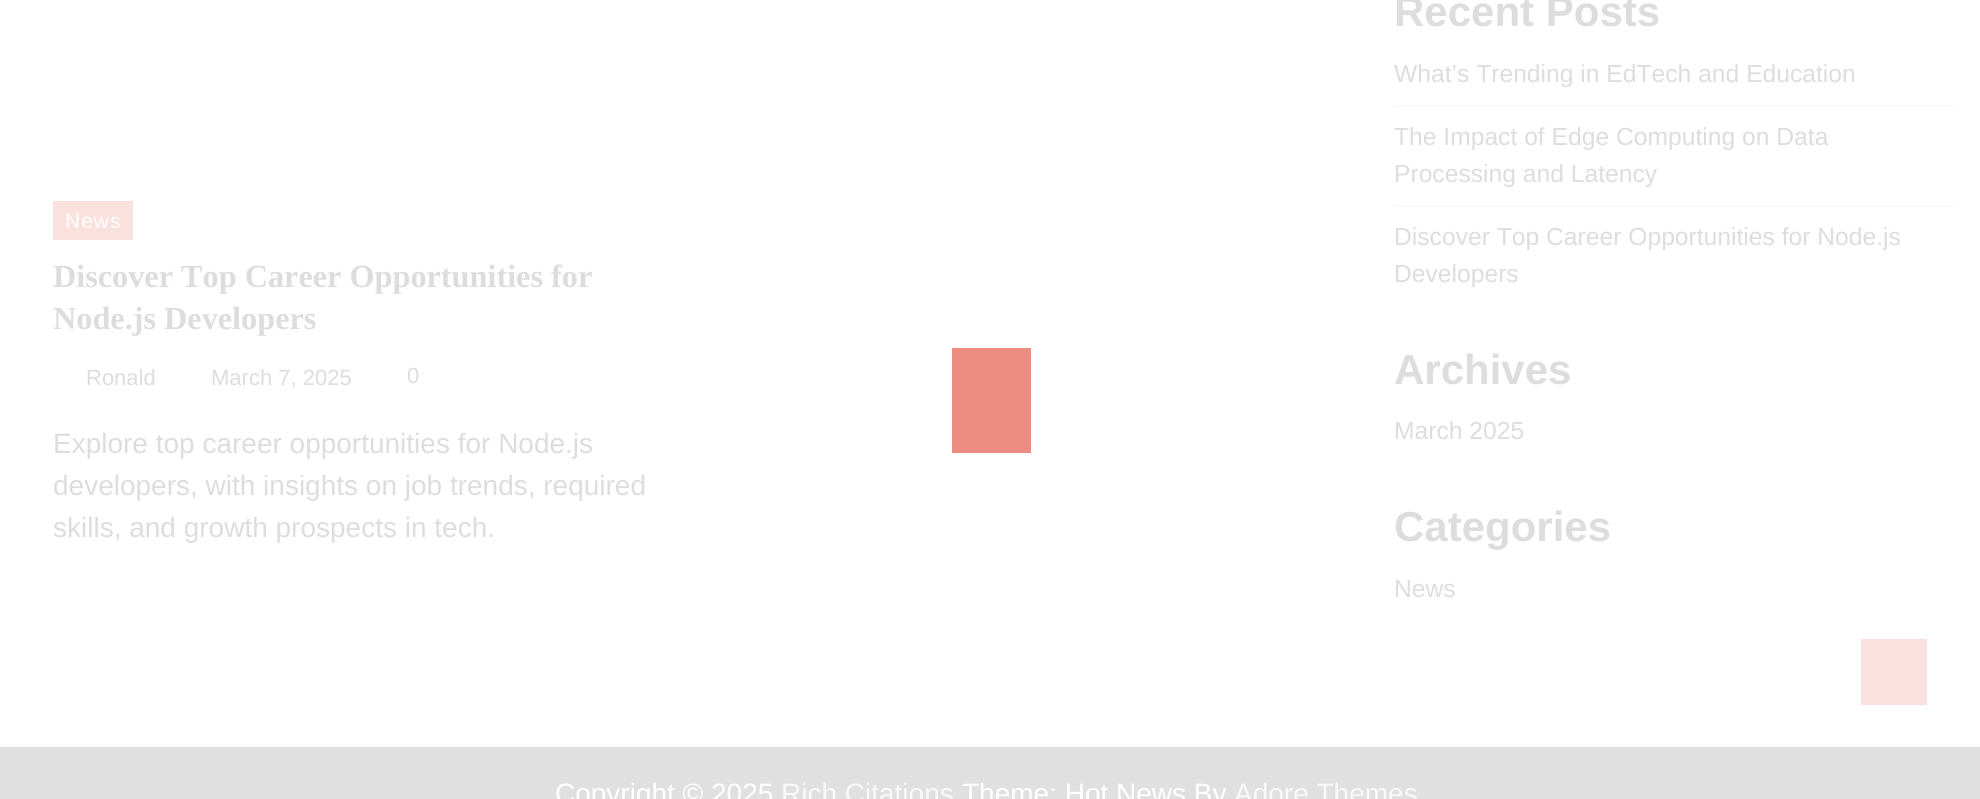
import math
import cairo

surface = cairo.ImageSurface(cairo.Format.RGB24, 1980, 799)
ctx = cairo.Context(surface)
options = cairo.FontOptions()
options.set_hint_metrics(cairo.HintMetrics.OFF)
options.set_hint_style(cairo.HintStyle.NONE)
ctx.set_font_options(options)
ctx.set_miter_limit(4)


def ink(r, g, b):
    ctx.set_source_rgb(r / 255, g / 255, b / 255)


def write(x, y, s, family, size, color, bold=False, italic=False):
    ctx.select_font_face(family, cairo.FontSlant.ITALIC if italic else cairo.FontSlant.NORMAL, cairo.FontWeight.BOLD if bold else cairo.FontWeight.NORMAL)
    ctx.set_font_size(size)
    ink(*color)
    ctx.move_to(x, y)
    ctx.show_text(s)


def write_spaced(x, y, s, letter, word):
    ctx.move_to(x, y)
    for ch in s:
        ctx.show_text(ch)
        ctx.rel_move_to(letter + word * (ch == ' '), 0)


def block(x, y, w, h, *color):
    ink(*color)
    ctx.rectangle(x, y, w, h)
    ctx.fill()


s1 = dict(family="Liberation Serif", size=32.25, color=(221, 221, 221), bold=True)
s2 = dict(family="Liberation Sans", size=22, color=(221, 221, 221))
s3 = dict(family="Liberation Sans", size=28, color=(221, 221, 221))
s4 = dict(family="Liberation Sans", size=42, color=(221, 221, 221), bold=True)
s5 = dict(family="Liberation Sans", size=24.65, color=(221, 221, 221))
s6 = dict(family="Liberation Sans", size=28, color=(255, 255, 255))
s7 = dict(family="Liberation Sans", size=28, color=(249, 249, 249))

ink(255, 255, 255)
ctx.paint()
block(53, 201, 80, 39, 250, 225, 222)
ctx.select_font_face("Liberation Sans")
ctx.set_font_size(21)
ink(255, 255, 255)
write_spaced(65, 228, "News", 1, 0)
write(53, 287, "Discover Top Career Opportunities for", **s1)
write(53, 329, "Node.js Developers", **s1)
write(86, 385, "Ronald", **s2)
write(211, 385, "March 7, 2025", **s2)
write(407, 383, "0", **s2)
write(53, 453, "Explore top career opportunities for Node.js", **s3)
write(53, 495, "developers, with insights on job trends, required", **s3)
write(53, 537, "skills, and growth prospects in tech.", **s3)
write(1394, 26, "Recent Posts", **s4)
block(1393, 105, 562, 2, 250, 250, 250)
write(1394, 82, "What’s Trending in EdTech and Education", **s5)
block(1393, 205, 562, 2, 250, 250, 250)
write(1394, 145, "The Impact of Edge Computing on Data", **s5)
write(1394, 182, "Processing and Latency", **s5)
write(1394, 245, "Discover Top Career Opportunities for Node.js", **s5)
write(1394, 282, "Developers", **s5)
write(1394, 384, "Archives", **s4)
write(1394, 439, "March 2025", **s5)
write(1394, 541, "Categories", **s4)
write(1394, 597, "News", **s5)
block(952, 348, 79, 105, 237, 140, 129)
block(1861, 639, 66, 66, 250, 225, 222)
block(0, 747, 1980, 52, 224, 224, 224)
write(555, 803, "Copyright © 2025", **s6)
write(781, 803, "Rich Citations", **s7)
write(962, 803, "Theme: Hot News By", **s6)
write(1234, 803, "Adore Themes", **s7)
surface.write_to_png("screenshot.png")
